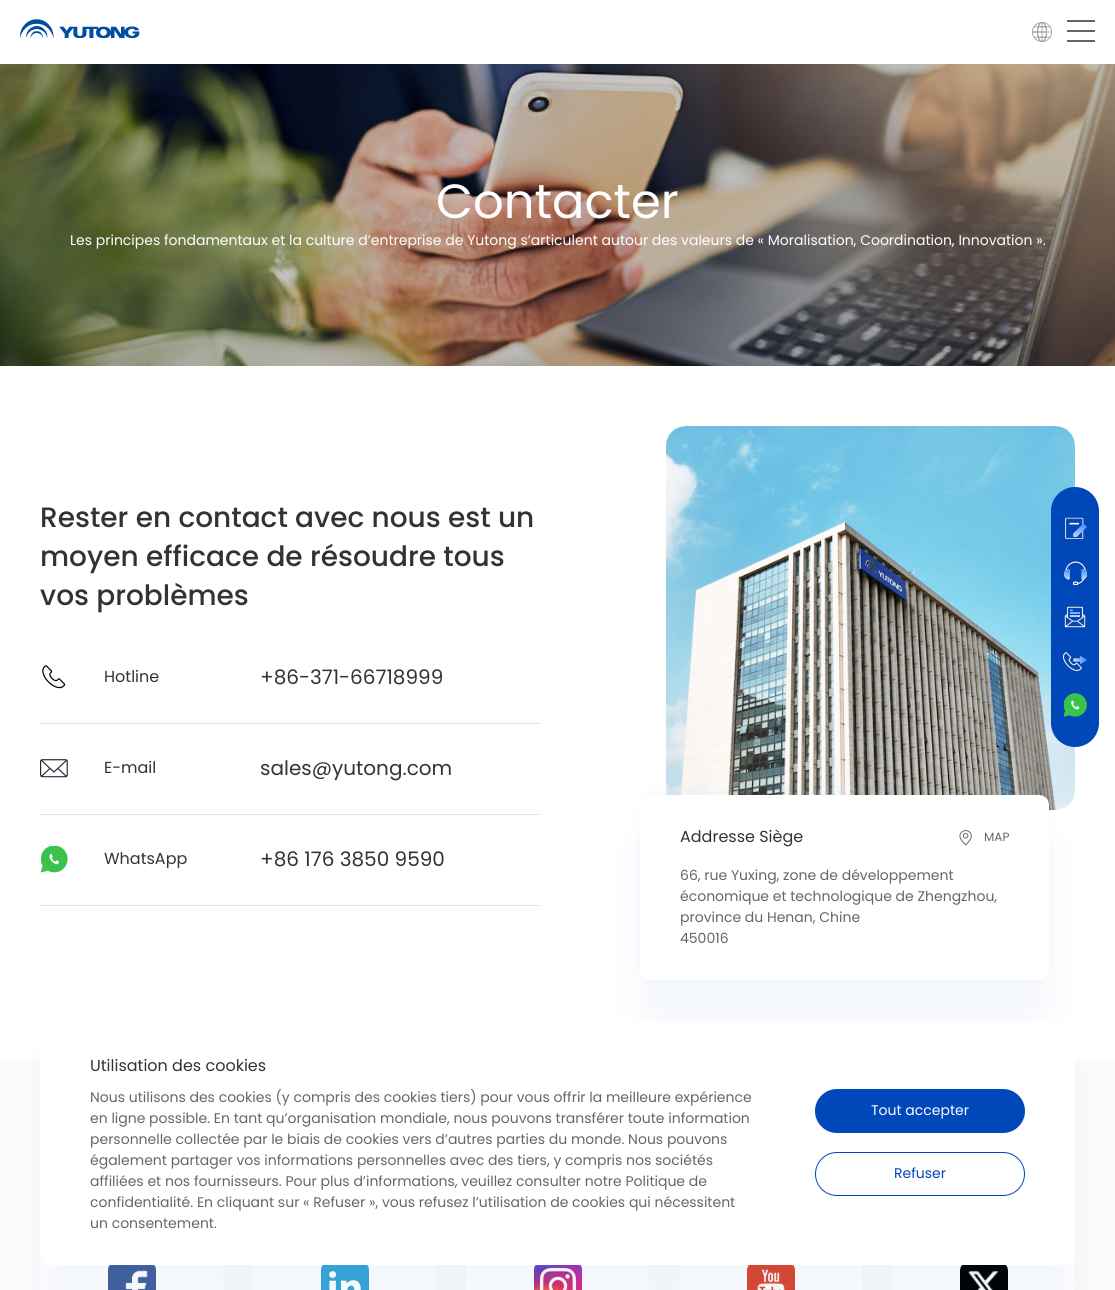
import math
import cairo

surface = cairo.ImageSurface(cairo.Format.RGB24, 1115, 1290)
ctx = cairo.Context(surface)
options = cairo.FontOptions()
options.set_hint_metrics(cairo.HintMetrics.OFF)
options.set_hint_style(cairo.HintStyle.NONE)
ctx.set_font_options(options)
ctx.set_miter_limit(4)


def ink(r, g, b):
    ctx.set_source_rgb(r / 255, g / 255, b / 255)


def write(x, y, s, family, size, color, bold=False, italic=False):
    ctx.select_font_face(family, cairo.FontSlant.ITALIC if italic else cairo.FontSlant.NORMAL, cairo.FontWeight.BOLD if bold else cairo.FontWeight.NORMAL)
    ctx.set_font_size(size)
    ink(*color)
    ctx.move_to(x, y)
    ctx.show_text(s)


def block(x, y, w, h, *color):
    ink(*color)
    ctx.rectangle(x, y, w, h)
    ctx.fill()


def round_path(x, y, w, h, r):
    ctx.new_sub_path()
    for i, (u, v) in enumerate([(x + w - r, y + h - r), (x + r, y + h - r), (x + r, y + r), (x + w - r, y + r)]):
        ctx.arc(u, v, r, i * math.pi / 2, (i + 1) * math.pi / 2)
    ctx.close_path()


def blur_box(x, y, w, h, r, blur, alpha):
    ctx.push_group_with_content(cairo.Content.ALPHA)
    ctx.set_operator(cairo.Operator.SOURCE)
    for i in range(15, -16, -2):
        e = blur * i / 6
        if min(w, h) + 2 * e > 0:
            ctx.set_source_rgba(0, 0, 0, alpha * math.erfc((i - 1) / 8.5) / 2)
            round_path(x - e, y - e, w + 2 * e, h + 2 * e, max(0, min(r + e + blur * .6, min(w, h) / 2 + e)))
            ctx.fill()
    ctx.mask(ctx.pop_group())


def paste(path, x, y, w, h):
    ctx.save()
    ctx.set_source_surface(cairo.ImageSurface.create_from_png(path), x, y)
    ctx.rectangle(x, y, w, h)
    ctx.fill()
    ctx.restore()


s1 = dict(family="Poppins", size=48, color=(255, 255, 255))
s2 = dict(family="Poppins", size=14, color=(255, 255, 255))
s3 = dict(family="Poppins Medium", size=28, color=(51, 51, 51))
s4 = dict(family="Poppins", size=16, color=(51, 51, 51))
s5 = dict(family="Poppins", size=20, color=(51, 51, 51))
s6 = dict(family="Poppins", size=12, color=(102, 102, 102))
s7 = dict(family="Poppins", size=14, color=(102, 102, 102))
s8 = dict(family="Poppins", size=14, color=(0, 71, 186))

ink(255, 255, 255)
ctx.paint()
paste("pic1.png", 20, 19, 120, 19)
paste("pic2.png", 1032, 22, 20, 20)
block(1067, 20, 28, 2, 102, 102, 102)
block(1067, 30, 28, 2, 102, 102, 102)
block(1067, 40, 28, 2, 102, 102, 102)
paste("pic3.png", 0, 64, 1115, 302)
write(436, 218, "Contacter", **s1)
write(70, 245, "Les principes fondamentaux et la culture d’entreprise de Yutong s’articulent autour des valeurs de « Moralisation, Coordination, Innovation ».", **s2)
write(40, 527, "Rester en contact avec nous est un", **s3)
write(40, 566, "moyen efficace de résoudre tous", **s3)
write(40, 605, "vos problèmes", **s3)
block(40, 723, 500, 1, 225, 225, 225)
paste("pic4.png", 42, 665, 24, 24)
write(104, 682, "Hotline", **s4)
write(260, 684, "+86-371-66718999", **s5)
block(40, 814, 500, 1, 225, 225, 225)
paste("pic5.png", 40, 759, 28, 19)
write(104, 773, "E-mail", **s4)
write(260, 775, "sales@yutong.com", **s5)
block(40, 905, 500, 1, 225, 225, 225)
paste("pic6.png", 41, 846, 27, 27)
write(104, 864, "WhatsApp", **s4)
write(260, 866, "+86 176 3850 9590", **s5)
paste("pic7.png", 666, 426, 409, 384)
ink(80, 164, 255)
blur_box(640, 791, 409, 185, 10, 5, 0.05)
block(0, 1060, 1115, 230, 251, 251, 251)
ink(29, 86, 185)
blur_box(640, 837, 409, 185, 10, 16.5, 0.05)
ink(255, 255, 255)
round_path(640, 795, 409, 185, 10)
ctx.fill()
write(680, 842, "Addresse Siège", **s4)
paste("pic8.png", 959, 830, 13, 16)
write(984, 841, "MAP", **s6)
write(680, 880, "66, rue Yuxing, zone de développement", **s7)
write(680, 901, "économique et technologique de Zhengzhou,", **s7)
write(680, 922, "province du Henan, Chine", **s7)
write(680, 943, "450016", **s7)
block(40, 1255, 183, 35, 255, 255, 255)
paste("pic9.png", 108, 1265, 48, 25)
block(253, 1265, 183, 25, 255, 255, 255)
paste("pic10.png", 321, 1265, 48, 25)
block(466, 1265, 183, 25, 255, 255, 255)
paste("pic11.png", 534, 1265, 48, 25)
block(679, 1265, 183, 25, 255, 255, 255)
paste("pic12.png", 747, 1265, 48, 25)
block(892, 1255, 183, 35, 255, 255, 255)
paste("pic13.png", 960, 1265, 48, 25)
ink(0, 71, 186)
round_path(1051, 487, 48, 260, 24)
ctx.fill()
paste("pic14.png", 1065, 517, 22, 22)
paste("pic15.png", 1065, 517, 22, 22)
paste("pic16.png", 1064, 561, 23, 24)
paste("pic17.png", 1064, 561, 23, 24)
paste("pic18.png", 1064, 606, 22, 22)
paste("pic19.png", 1064, 606, 22, 22)
paste("pic20.png", 1063, 652, 24, 19)
paste("pic21.png", 1063, 652, 24, 19)
paste("pic22.png", 1064, 693, 23, 24)
paste("pic23.png", 1064, 693, 23, 24)
ink(29, 86, 185)
blur_box(40, 1064, 1035, 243, 10, 16.5, 0.05)
ink(255, 255, 255)
round_path(40, 1022, 1035, 243, 10)
ctx.fill()
write(90, 1071, "Utilisation des cookies", **s4)
write(90, 1102, "Nous utilisons des cookies (y compris des cookies tiers) pour vous offrir la meilleure expérience", **s7)
write(90, 1123, "en ligne possible. En tant qu’organisation mondiale, nous pouvons transférer toute information", **s7)
write(90, 1144, "personnelle collectée par le biais de cookies vers d’autres parties du monde. Nous pouvons", **s7)
write(90, 1165, "également partager vos informations personnelles avec des tiers, y compris nos sociétés", **s7)
write(90, 1186, "affiliées et nos fournisseurs. Pour plus d’informations, veuillez consulter notre Politique de", **s7)
write(90, 1207, "confidentialité. En cliquant sur « Refuser », vous refusez l’utilisation de cookies qui nécessitent", **s7)
write(90, 1228, "un consentement.", **s7)
ink(0, 71, 186)
round_path(815, 1089, 210, 44, 22)
ctx.fill()
write(871, 1115, "Tout accepter", **s2)
round_path(815.5, 1152.5, 209, 43, 21.5)
ink(0, 71, 186)
ctx.set_line_width(1)
ctx.stroke()
write(894, 1178, "Refuser", **s8)
surface.write_to_png("screenshot.png")
